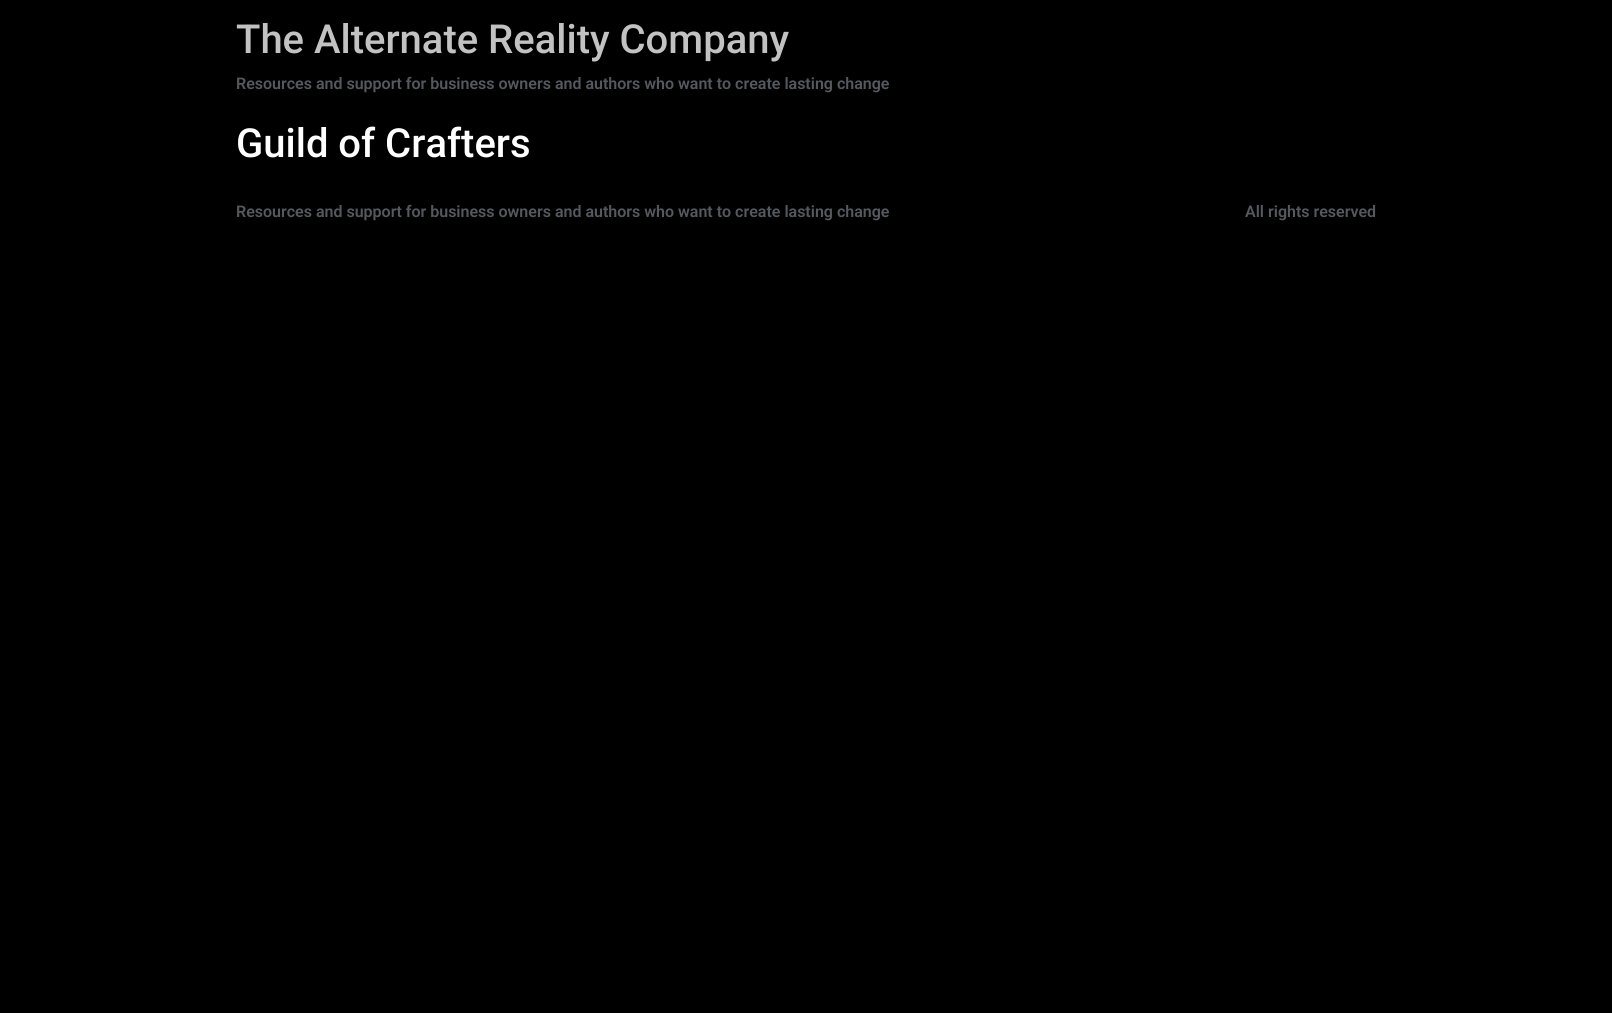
import math
import cairo

surface = cairo.ImageSurface(cairo.Format.RGB24, 1612, 1013)
ctx = cairo.Context(surface)
options = cairo.FontOptions()
options.set_hint_metrics(cairo.HintMetrics.OFF)
options.set_hint_style(cairo.HintStyle.NONE)
ctx.set_font_options(options)
ctx.set_miter_limit(4)


def ink(r, g, b):
    ctx.set_source_rgb(r / 255, g / 255, b / 255)


def write(x, y, s, family, size, color, bold=False, italic=False):
    ctx.select_font_face(family, cairo.FontSlant.ITALIC if italic else cairo.FontSlant.NORMAL, cairo.FontWeight.BOLD if bold else cairo.FontWeight.NORMAL)
    ctx.set_font_size(size)
    ink(*color)
    ctx.move_to(x, y)
    ctx.show_text(s)


s1 = dict(family="Roboto Medium", size=40, color=(194, 194, 194))
s2 = dict(family="Roboto SemiBold", size=16, color=(84, 89, 95))
s3 = dict(family="Roboto Medium", size=40, color=(255, 255, 255))

ink(0, 0, 0)
ctx.paint()
write(236, 53, "The Alternate Reality Company", **s1)
write(236, 89, "Resources and support for business owners and authors who want to create lasting change", **s2)
write(236, 157, "Guild of Crafters", **s3)
write(236, 217, "Resources and support for business owners and authors who want to create lasting change", **s2)
write(1245, 217, "All rights reserved", **s2)
surface.write_to_png("screenshot.png")
